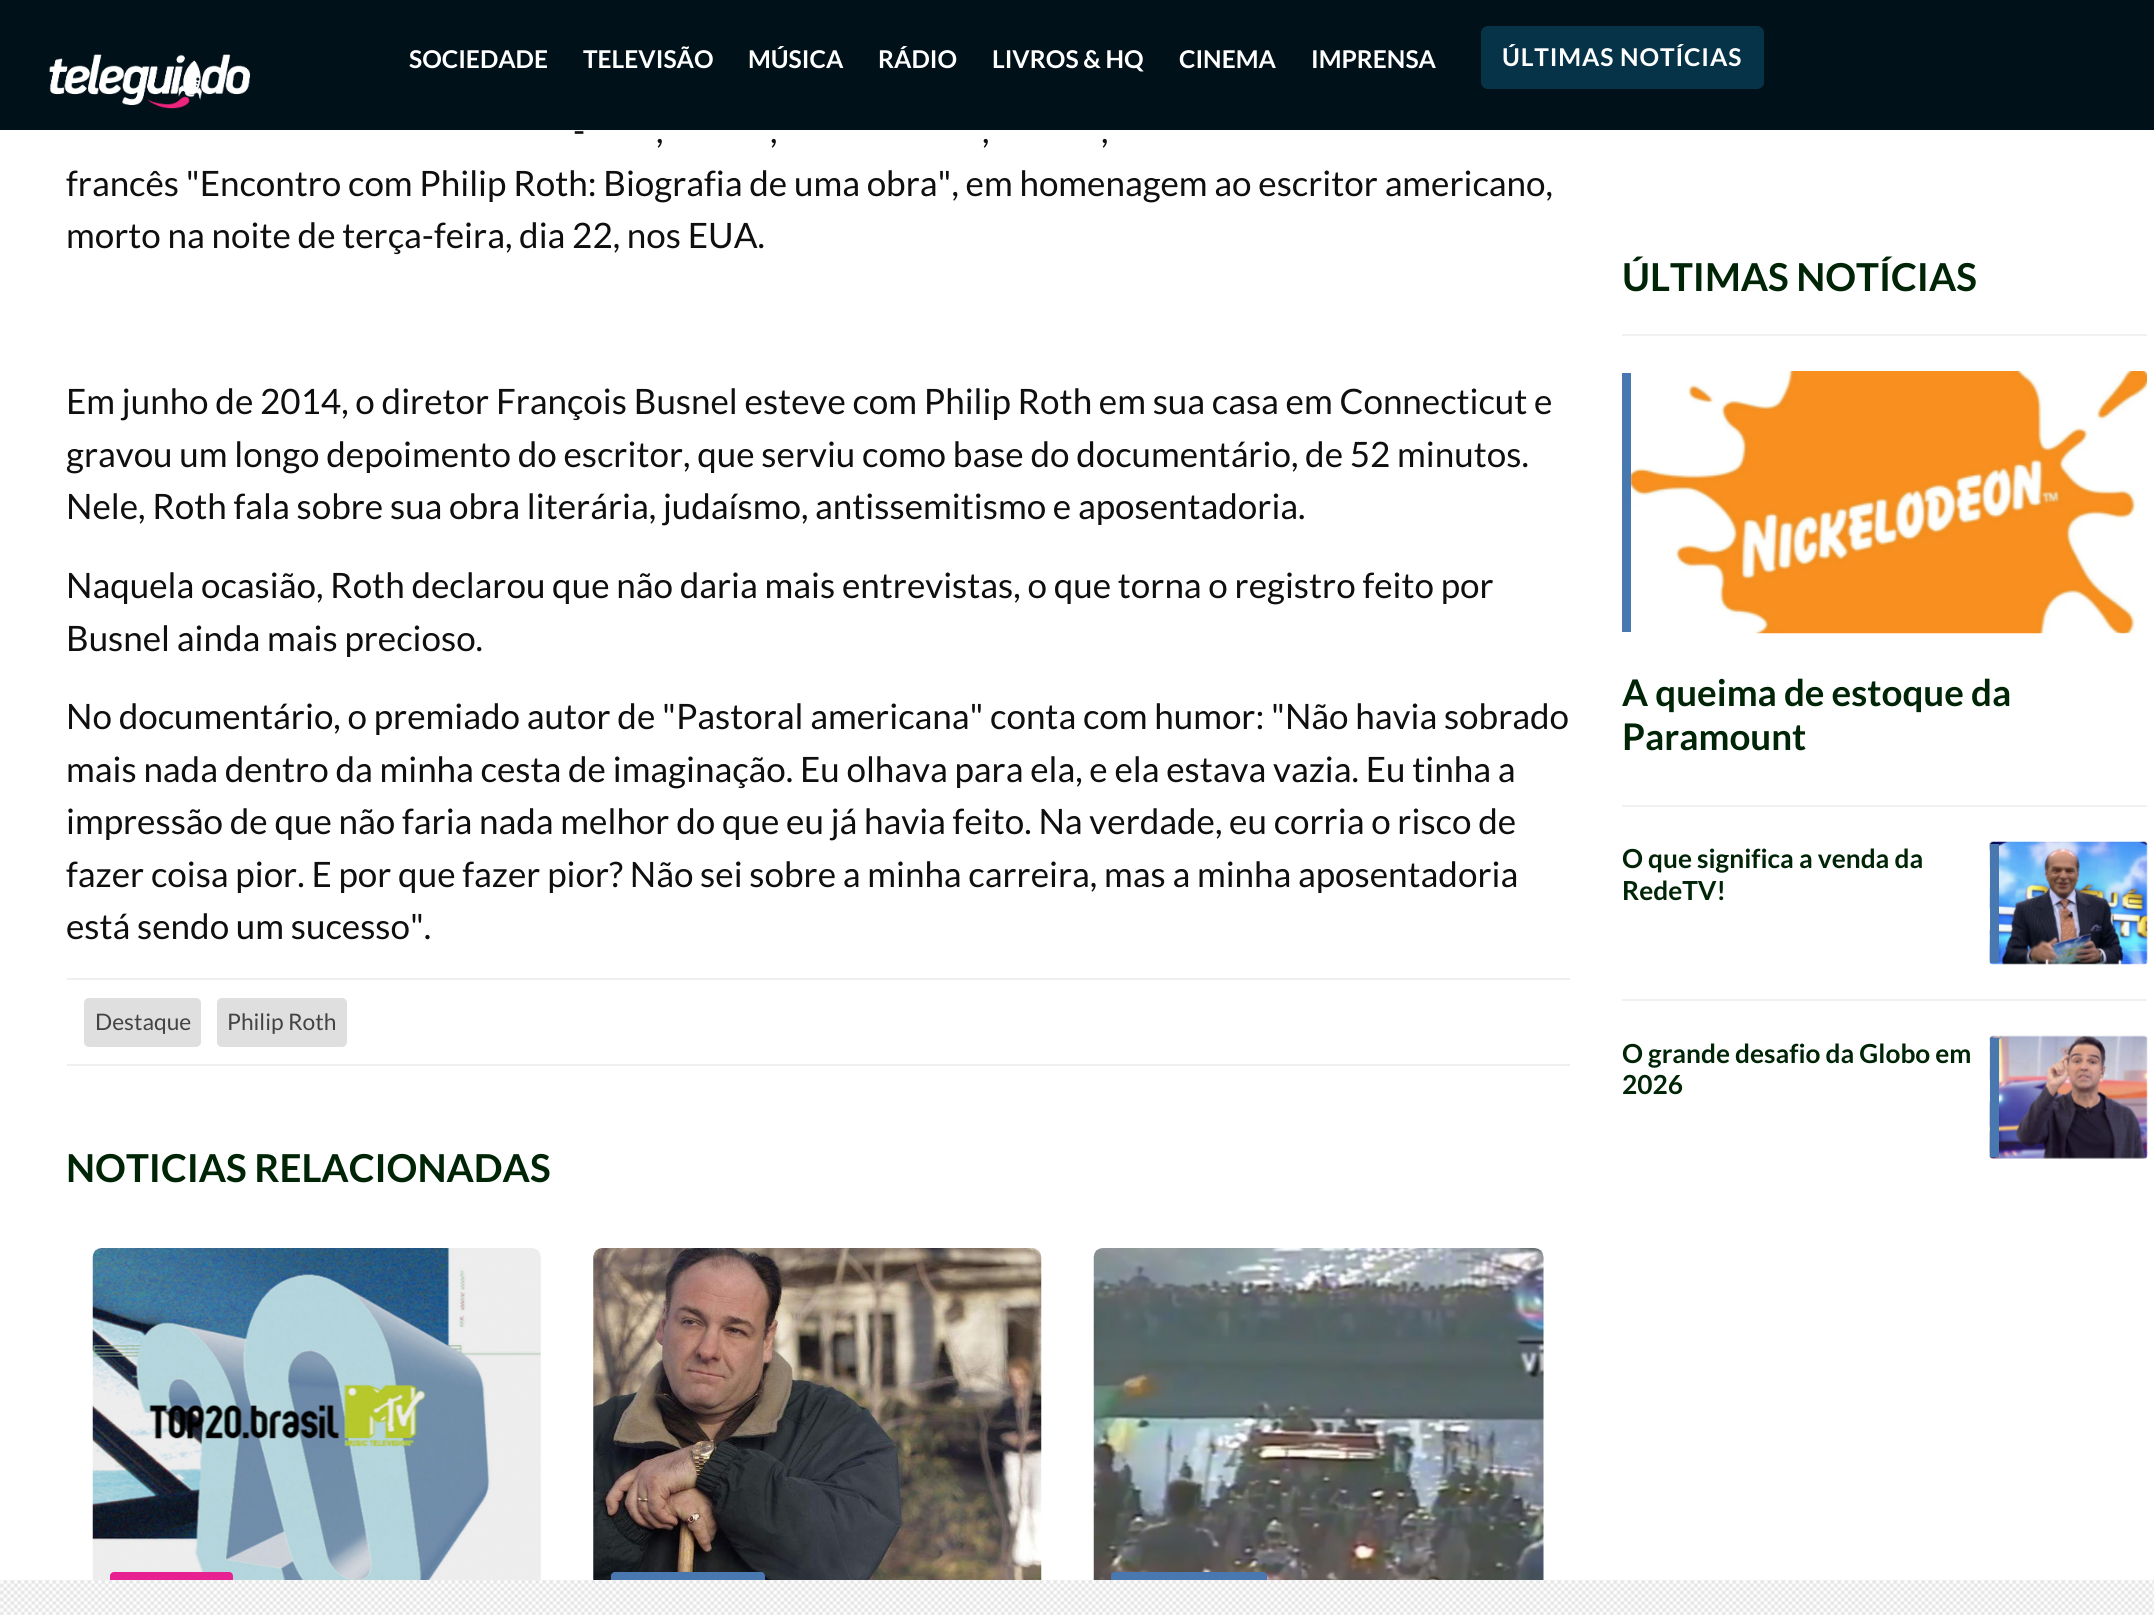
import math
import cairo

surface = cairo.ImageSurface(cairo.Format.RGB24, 2154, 1615)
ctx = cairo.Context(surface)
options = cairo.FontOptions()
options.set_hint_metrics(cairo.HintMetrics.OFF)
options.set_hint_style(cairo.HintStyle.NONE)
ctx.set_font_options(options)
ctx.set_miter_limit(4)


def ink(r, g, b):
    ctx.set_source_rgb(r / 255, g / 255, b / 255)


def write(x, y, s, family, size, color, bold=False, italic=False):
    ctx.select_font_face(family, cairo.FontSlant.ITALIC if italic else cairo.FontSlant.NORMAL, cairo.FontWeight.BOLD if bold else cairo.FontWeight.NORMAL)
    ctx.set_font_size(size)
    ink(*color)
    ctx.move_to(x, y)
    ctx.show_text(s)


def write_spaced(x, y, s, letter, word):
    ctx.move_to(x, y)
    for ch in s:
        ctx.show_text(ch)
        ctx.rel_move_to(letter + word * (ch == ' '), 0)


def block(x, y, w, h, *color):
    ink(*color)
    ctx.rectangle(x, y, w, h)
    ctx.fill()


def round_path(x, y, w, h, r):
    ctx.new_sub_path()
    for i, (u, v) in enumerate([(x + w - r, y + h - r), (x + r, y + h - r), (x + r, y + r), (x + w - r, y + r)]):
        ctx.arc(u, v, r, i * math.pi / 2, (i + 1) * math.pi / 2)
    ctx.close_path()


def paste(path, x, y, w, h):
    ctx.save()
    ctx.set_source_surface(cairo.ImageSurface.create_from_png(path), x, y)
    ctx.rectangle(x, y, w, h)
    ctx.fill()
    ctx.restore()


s1 = dict(family="Lato", size=24.5, color=(255, 255, 255), bold=True)
s2 = dict(family="Lato", size=35, color=(15, 15, 15))
s3 = dict(family="Lato", size=22.75, color=(67, 67, 67))
s4 = dict(family="Lato", size=38.5, color=(0, 36, 6), bold=True)
s5 = dict(family="Lato", size=36.75, color=(0, 36, 6), bold=True)
s6 = dict(family="Lato", size=26.25, color=(0, 36, 6), bold=True)

ink(255, 255, 255)
ctx.paint()
block(0, 0, 2154, 130, 0, 17, 26)
paste("pic1.png", 49, 54, 202, 55)
write(409, 68, "SOCIEDADE", **s1)
write(583, 68, "TELEVISÃO", **s1)
write(748, 68, "MÚSICA", **s1)
write(878, 68, "RÁDIO", **s1)
write(992, 68, "LIVROS & HQ", **s1)
write(1179, 68, "CINEMA", **s1)
write(1311, 68, "IMPRENSA", **s1)
ink(7, 51, 73)
round_path(1481, 26, 283, 63, 7)
ctx.fill()
ink(255, 255, 255)
write_spaced(1502, 66, "ÚLTIMAS NOTÍCIAS", 0.9, 0)
write(573, 143, "-", **s2)
write(656, 143, ",", **s2)
write(770, 143, ",", **s2)
write(982, 143, ",", **s2)
write(1101, 143, ",", **s2)
write(66, 196, "francês \"Encontro com Philip Roth: Biografia de uma obra\", em homenagem ao escritor americano,", **s2)
write(66, 248, "morto na noite de terça-feira, dia 22, nos EUA.", **s2)
write(66, 414, "Em junho de 2014, o diretor François Busnel esteve com Philip Roth em sua casa em Connecticut e", **s2)
write(66, 467, "gravou um longo depoimento do escritor, que serviu como base do documentário, de 52 minutos.", **s2)
write(66, 519, "Nele, Roth fala sobre sua obra literária, judaísmo, antissemitismo e aposentadoria.", **s2)
write(66, 598, "Naquela ocasião, Roth declarou que não daria mais entrevistas, o que torna o registro feito por", **s2)
write(66, 651, "Busnel ainda mais precioso.", **s2)
write(66, 729, "No documentário, o premiado autor de \"Pastoral americana\" conta com humor: \"Não havia sobrado", **s2)
write(66, 782, "mais nada dentro da minha cesta de imaginação. Eu olhava para ela, e ela estava vazia. Eu tinha a", **s2)
write(66, 834, "impressão de que não faria nada melhor do que eu já havia feito. Na verdade, eu corria o risco de", **s2)
write(66, 887, "fazer coisa pior. E por que fazer pior? Não sei sobre a minha carreira, mas a minha aposentadoria", **s2)
write(66, 939, "está sendo um sucesso\".", **s2)
block(67, 978, 1503, 2, 239, 239, 239)
block(67, 1064, 1503, 2, 239, 239, 239)
ink(223, 223, 223)
round_path(84, 998, 117, 49, 5)
ctx.fill()
write(95, 1030, "Destaque", **s3)
ink(223, 223, 223)
round_path(217, 998, 130, 49, 5)
ctx.fill()
write(227, 1030, "Philip Roth", **s3)
write(66, 1182, "NOTICIAS RELACIONADAS", **s4)
paste("pic2.png", 92, 1248, 449, 332)
ink(232, 33, 146)
round_path(110, 1572, 123, 40, 4)
ctx.fill()
paste("pic3.png", 593, 1248, 449, 332)
ink(73, 119, 175)
round_path(611, 1572, 154, 40, 4)
ctx.fill()
paste("pic4.png", 1093, 1248, 451, 332)
round_path(1111, 1572, 156, 40, 4)
ctx.fill()
write(1622, 291, "ÚLTIMAS NOTÍCIAS", **s4)
block(1622, 334, 525, 2, 241, 241, 241)
paste("pic5.png", 1630, 371, 517, 263)
block(1622, 373, 9, 259, 73, 119, 175)
write(1622, 706, "A queima de estoque da", **s5)
write(1622, 750, "Paramount", **s5)
block(1622, 805, 525, 2, 241, 241, 241)
write(1622, 868, "O que significa a venda da", **s6)
write(1622, 900, "RedeTV!", **s6)
paste("pic6.png", 1989, 841, 159, 124)
block(1990, 844, 9, 119, 73, 119, 175)
block(1622, 999, 525, 2, 241, 241, 241)
write(1622, 1063, "O grande desafio da Globo em", **s6)
write(1622, 1094, "2026", **s6)
paste("pic7.png", 1989, 1035, 159, 124)
block(1990, 1038, 9, 119, 73, 119, 175)
paste("pic8.png", 0, 1580, 2154, 35)
surface.write_to_png("screenshot.png")
